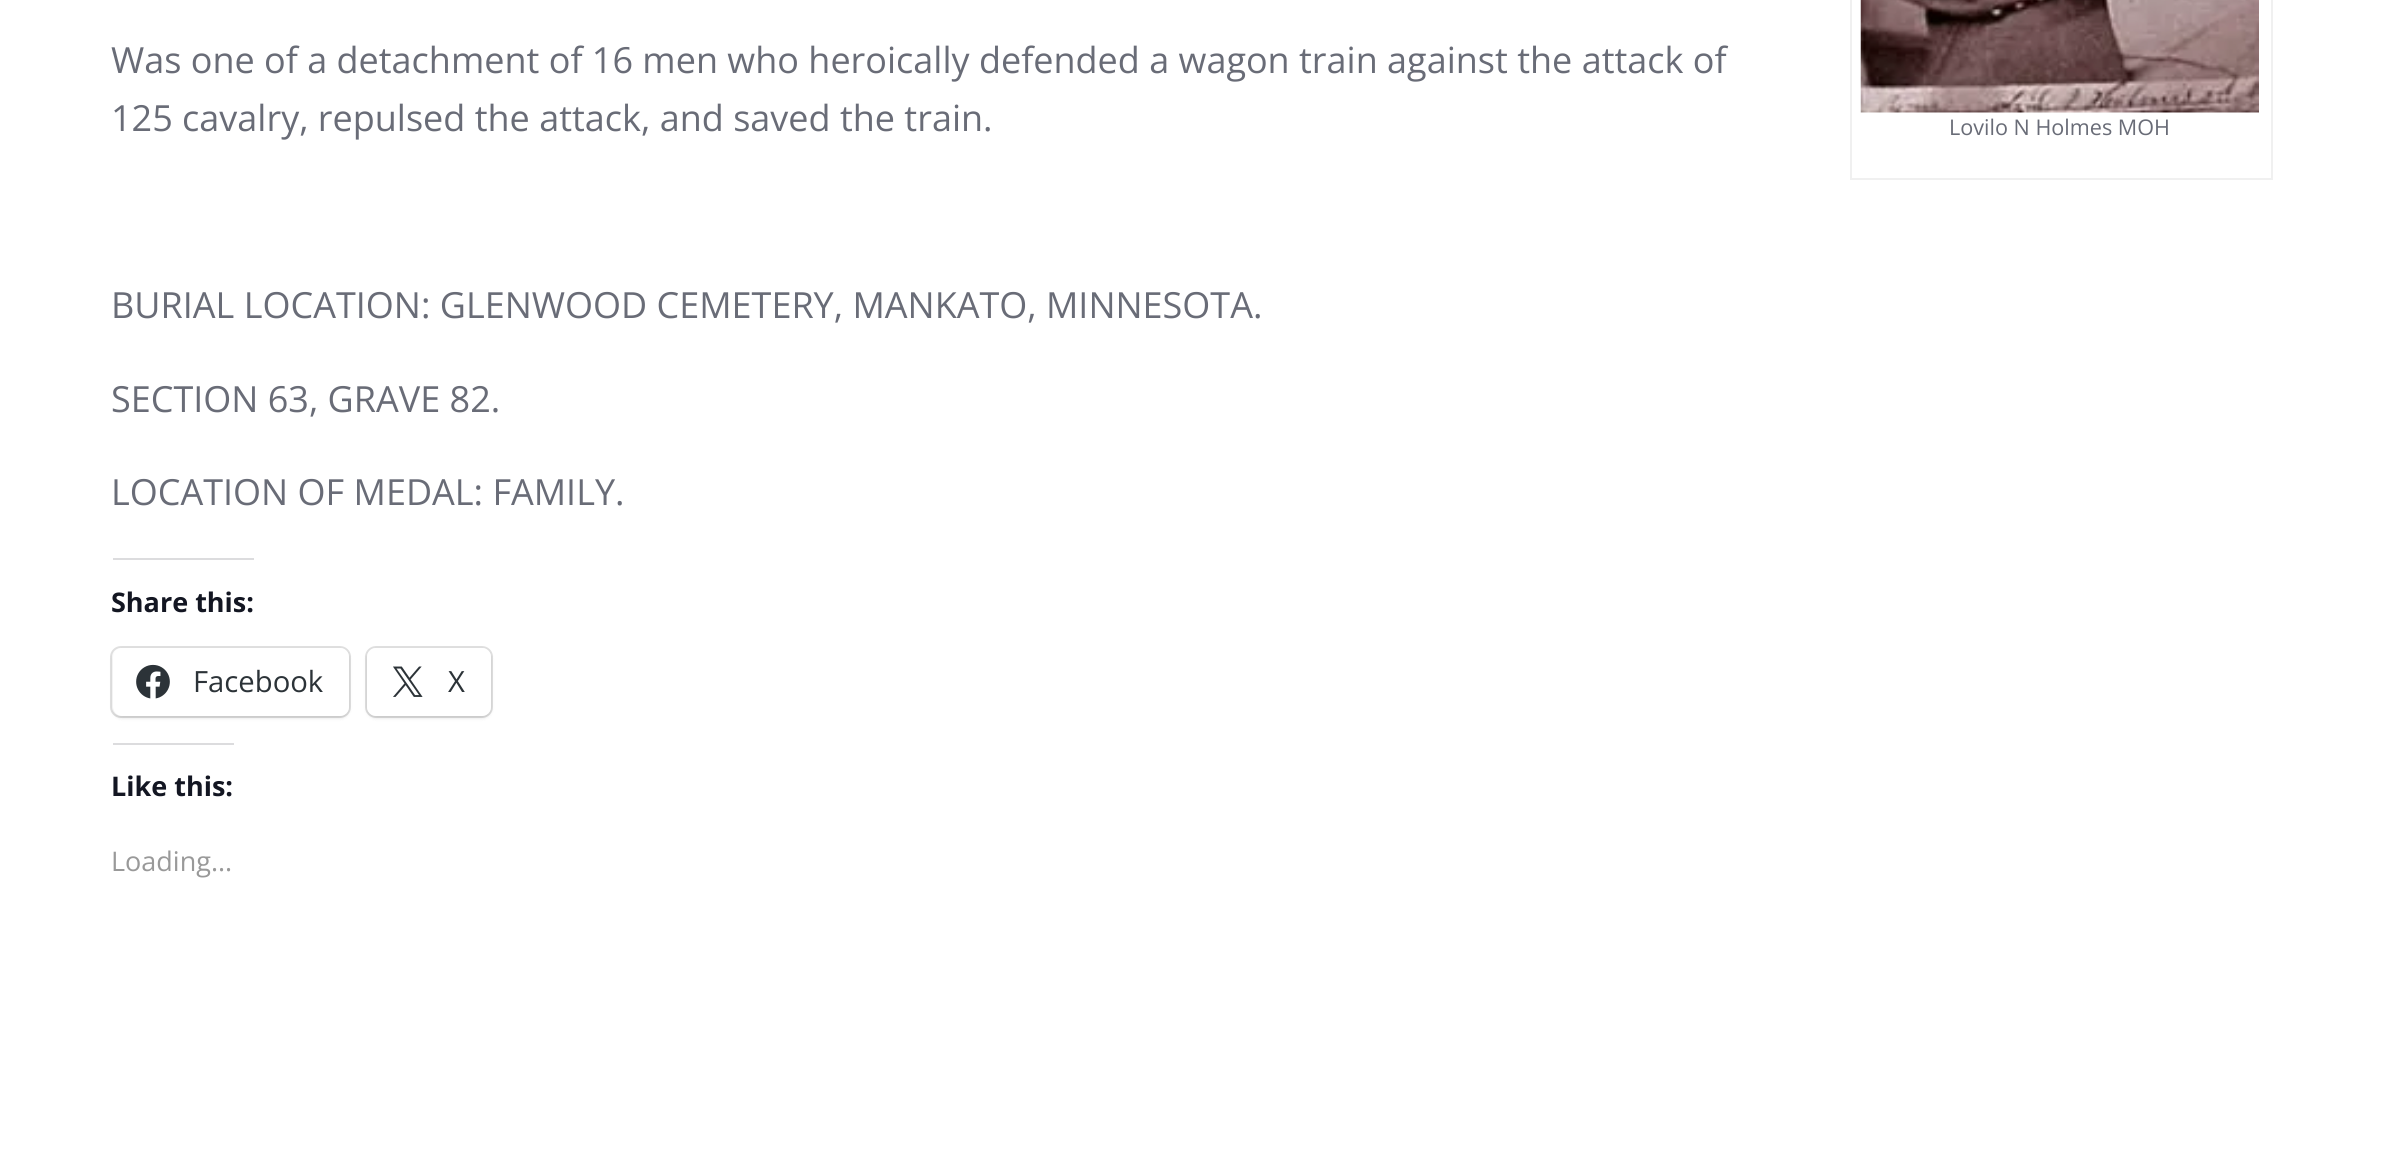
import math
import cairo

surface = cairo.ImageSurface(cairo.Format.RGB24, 2381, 1169)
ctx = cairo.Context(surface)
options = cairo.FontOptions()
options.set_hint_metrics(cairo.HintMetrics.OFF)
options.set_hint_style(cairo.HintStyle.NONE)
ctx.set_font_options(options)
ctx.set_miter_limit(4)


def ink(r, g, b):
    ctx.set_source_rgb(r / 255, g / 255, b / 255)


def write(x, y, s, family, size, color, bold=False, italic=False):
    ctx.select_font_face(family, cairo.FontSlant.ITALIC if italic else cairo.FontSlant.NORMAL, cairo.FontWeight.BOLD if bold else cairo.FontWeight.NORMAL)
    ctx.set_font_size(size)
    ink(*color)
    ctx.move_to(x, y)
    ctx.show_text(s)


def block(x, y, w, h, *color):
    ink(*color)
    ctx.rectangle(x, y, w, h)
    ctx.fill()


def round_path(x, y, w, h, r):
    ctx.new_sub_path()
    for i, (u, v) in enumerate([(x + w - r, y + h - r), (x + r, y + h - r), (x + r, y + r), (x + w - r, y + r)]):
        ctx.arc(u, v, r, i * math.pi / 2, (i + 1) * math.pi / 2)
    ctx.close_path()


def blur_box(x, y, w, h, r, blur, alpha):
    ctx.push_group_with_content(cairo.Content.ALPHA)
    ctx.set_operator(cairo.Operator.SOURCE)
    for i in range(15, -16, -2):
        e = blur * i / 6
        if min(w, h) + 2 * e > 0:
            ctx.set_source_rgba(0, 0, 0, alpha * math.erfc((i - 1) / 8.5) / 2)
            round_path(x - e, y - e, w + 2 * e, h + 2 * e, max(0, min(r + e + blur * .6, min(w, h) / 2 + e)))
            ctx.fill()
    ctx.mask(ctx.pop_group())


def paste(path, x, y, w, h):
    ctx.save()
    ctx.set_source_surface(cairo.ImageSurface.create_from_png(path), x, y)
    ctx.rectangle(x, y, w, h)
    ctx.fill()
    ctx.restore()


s1 = dict(family="Open Sans", size=36, color=(105, 108, 119))
s2 = dict(family="Open Sans", size=21.6, color=(105, 108, 119))
s3 = dict(family="Open Sans", size=27, color=(19, 22, 34), bold=True)
s4 = dict(family="Open Sans", size=29.25, color=(44, 51, 56))
s5 = dict(family="Open Sans", size=27, color=(153, 153, 153))

ink(255, 255, 255)
ctx.paint()
write(111, 73, "Was one of a detachment of 16 men who heroically defended a wagon train against the attack of", **s1)
write(111, 131, "125 cavalry, repulsed the attack, and saved the train.", **s1)
ctx.rectangle(1851, -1, 421, 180)
ink(240, 240, 240)
ctx.stroke()
paste("pic1.png", 1860, 0, 399, 113)
write(1949, 135, "Lovilo N Holmes MOH", **s2)
write(111, 318, "BURIAL LOCATION: GLENWOOD CEMETERY, MANKATO, MINNESOTA.", **s1)
write(111, 412, "SECTION 63, GRAVE 82.", **s1)
write(111, 505, "LOCATION OF MEDAL: FAMILY.", **s1)
block(113, 558, 141, 2, 220, 220, 222)
write(111, 612, "Share this:", **s3)
round_path(111, 647, 239, 70, 10)
ink(224, 224, 224)
ctx.stroke()
ink(0, 0, 0)
blur_box(113, 650, 236, 68, 9, 2, 0.12)
ink(255, 255, 255)
round_path(113, 648, 236, 68, 9)
ctx.fill()
paste("pic2.png", 136, 664, 34, 35)
write(193, 692, "Facebook", **s4)
round_path(366, 647, 126, 70, 10)
ink(224, 224, 224)
ctx.stroke()
ink(0, 0, 0)
blur_box(367, 650, 124, 68, 9, 2, 0.12)
ink(255, 255, 255)
round_path(367, 648, 124, 68, 9)
ctx.fill()
paste("pic3.png", 393, 666, 30, 31)
write(448, 692, "X", **s4)
block(113, 743, 121, 2, 220, 220, 222)
write(111, 796, "Like this:", **s3)
write(111, 871, "Loading...", **s5)
surface.write_to_png("screenshot.png")
